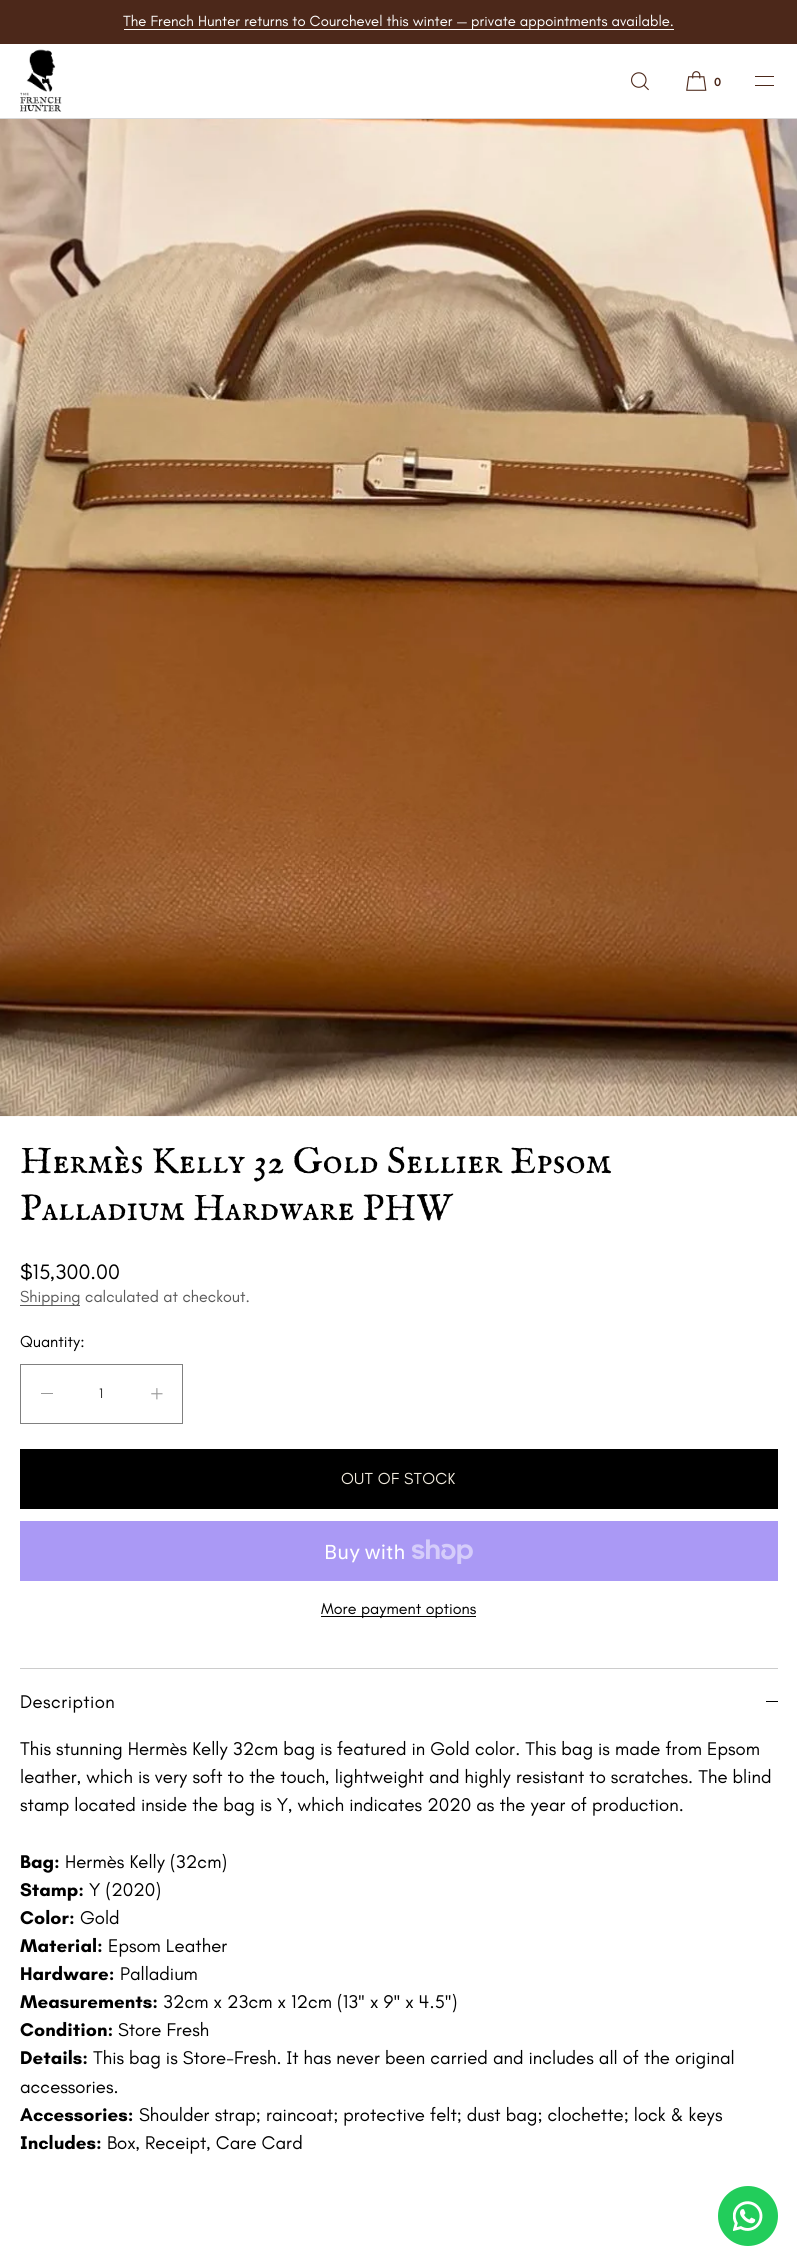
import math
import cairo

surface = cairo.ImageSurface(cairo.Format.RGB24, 797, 2266)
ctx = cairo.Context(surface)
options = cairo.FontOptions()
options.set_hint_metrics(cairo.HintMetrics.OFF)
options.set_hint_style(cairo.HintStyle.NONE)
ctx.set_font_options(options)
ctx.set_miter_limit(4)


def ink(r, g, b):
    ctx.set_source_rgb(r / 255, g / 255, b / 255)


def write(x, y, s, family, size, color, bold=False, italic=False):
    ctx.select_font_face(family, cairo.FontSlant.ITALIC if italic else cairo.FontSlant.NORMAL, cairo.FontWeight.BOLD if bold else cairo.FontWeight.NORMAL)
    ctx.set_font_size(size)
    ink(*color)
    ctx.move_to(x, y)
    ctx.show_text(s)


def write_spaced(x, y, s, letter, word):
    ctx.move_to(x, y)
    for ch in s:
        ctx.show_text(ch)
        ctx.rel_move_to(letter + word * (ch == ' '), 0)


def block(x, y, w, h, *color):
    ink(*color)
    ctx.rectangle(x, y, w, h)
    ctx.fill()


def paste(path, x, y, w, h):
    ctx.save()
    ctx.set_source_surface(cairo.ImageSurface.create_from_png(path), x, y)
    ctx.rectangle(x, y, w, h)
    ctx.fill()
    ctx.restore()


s1 = dict(family="Teachers", size=15, color=(255, 255, 255))
s2 = dict(family="Teachers SemiBold", size=12, color=(76, 40, 26))
s3 = dict(family="IM FELL English SC", size=37.5, color=(0, 0, 0))
s4 = dict(family="Teachers", size=21.25, color=(0, 0, 0))
s5 = dict(family="Teachers", size=16.25, color=(89, 89, 89))
s6 = dict(family="Teachers", size=16.25, color=(0, 0, 0))
s7 = dict(family="Teachers", size=14, color=(38, 38, 38))
s8 = dict(family="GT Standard", size=20, color=(255, 255, 255))
s9 = dict(family="Teachers", size=18.75, color=(0, 0, 0))
s10 = dict(family="Teachers", size=18.75, color=(0, 0, 0), bold=True)

ink(255, 255, 255)
ctx.paint()
block(0, 0, 797, 44, 76, 40, 26)
block(124, 29, 550, 1, 255, 255, 255)
write(123, 26, "The French Hunter returns to Courchevel this winter — private appointments available.", **s1)
block(0, 118, 797, 1, 217, 217, 217)
paste("pic1.png", 20, 49, 42, 63)
paste("pic2.png", 631, 72, 18, 19)
paste("pic3.png", 686, 71, 21, 20)
write(714, 86, "0", **s2)
block(755, 76, 19, 1, 76, 40, 26)
block(755, 85, 19, 1, 76, 40, 26)
paste("pic4.png", 0, 119, 797, 998)
write(20, 1173, "Hermès Kelly 32 Gold Sellier Epsom", **s3)
write(20, 1220, "Palladium Hardware PHW", **s3)
write(20, 1279, "$15,300.00", **s4)
block(20, 1305, 60, 1, 89, 89, 89)
write(20, 1302, "Shipping calculated at checkout.", **s5)
write(20, 1347, "Quantity:", **s6)
ctx.rectangle(20.5, 1364.5, 162, 59)
ink(128, 128, 128)
ctx.set_line_width(1)
ctx.stroke()
block(41, 1393, 12, 1, 153, 153, 153)
write(99, 1398, "1", **s7)
paste("pic5.png", 151, 1388, 12, 12)
block(20, 1449, 758, 60, 0, 0, 0)
ctx.set_font_size(16.25)
ink(243, 237, 224)
write_spaced(341, 1484, "OUT OF STOCK", 0.25, 0)
block(20, 1521, 758, 60, 170, 153, 245)
write(324, 1559, "Buy with", **s8)
paste("pic6.png", 412, 1539, 61, 25)
block(321, 1616, 155, 1, 0, 0, 0)
write(321, 1614, "More payment options", **s6)
block(20, 1668, 758, 1, 204, 204, 204)
ctx.set_font_size(18.75)
ink(0, 0, 0)
write_spaced(20, 1708, "Description", 0.4, 0)
block(766, 1701, 12, 1, 0, 0, 0)
write(20, 1755, "This stunning Hermès Kelly 32cm bag is featured in Gold color. This bag is made from Epsom", **s9)
write(20, 1783, "leather, which is very soft to the touch, lightweight and highly resistant to scratches. The blind", **s9)
write(20, 1811, "stamp located inside the bag is Y, which indicates 2020 as the year of production.", **s9)
write(20, 1868, "Bag:", **s10)
write(65, 1868, "Hermès Kelly (32cm)", **s9)
write(20, 1896, "Stamp:", **s10)
write(89, 1896, "Y (2020)", **s9)
write(20, 1924, "Color:", **s10)
write(80, 1924, "Gold", **s9)
write(20, 1952, "Material:", **s10)
write(108, 1952, "Epsom Leather", **s9)
write(20, 1980, "Hardware:", **s10)
write(120, 1980, "Palladium", **s9)
write(20, 2008, "Measurements:", **s10)
write(163, 2008, "32cm x 23cm x 12cm (13\" x 9\" x 4.5\")", **s9)
write(20, 2036, "Condition:", **s10)
write(118, 2036, "Store Fresh", **s9)
write(20, 2064, "Details:", **s10)
write(93, 2064, "This bag is Store-Fresh. It has never been carried and includes all of the original", **s9)
write(20, 2093, "accessories.", **s9)
write(20, 2121, "Accessories:", **s10)
write(139, 2121, "Shoulder strap; raincoat; protective felt; dust bag; clochette; lock & keys", **s9)
write(20, 2149, "Includes:", **s10)
write(107, 2149, "Box, Receipt, Care Card", **s9)
ink(34, 205, 91)
ctx.new_path()
ctx.arc(748, 2216, 30, 0, 2 * math.pi)
ctx.fill()
paste("pic7.png", 733, 2201, 30, 30)
surface.write_to_png("screenshot.png")
